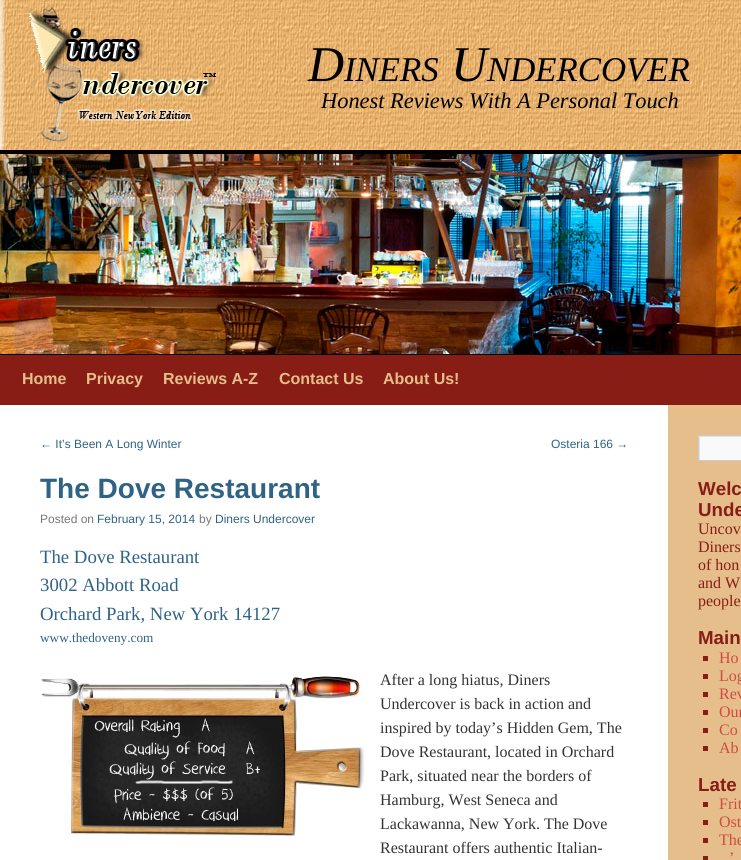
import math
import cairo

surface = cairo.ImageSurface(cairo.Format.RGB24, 741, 860)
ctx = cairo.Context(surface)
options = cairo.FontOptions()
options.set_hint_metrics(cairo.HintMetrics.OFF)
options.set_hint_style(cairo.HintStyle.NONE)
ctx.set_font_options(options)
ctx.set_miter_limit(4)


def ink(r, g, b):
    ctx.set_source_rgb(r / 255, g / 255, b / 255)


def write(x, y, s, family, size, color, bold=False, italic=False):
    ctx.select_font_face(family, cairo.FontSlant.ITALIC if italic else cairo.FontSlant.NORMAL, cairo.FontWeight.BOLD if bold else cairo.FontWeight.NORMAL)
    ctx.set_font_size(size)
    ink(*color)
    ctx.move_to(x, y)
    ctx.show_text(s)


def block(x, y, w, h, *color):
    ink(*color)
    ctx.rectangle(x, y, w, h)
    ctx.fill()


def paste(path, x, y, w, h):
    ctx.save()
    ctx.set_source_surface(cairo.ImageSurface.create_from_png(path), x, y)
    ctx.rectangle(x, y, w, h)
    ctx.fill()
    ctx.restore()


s1 = dict(family="Liberation Serif", size=50, color=(0, 0, 0), italic=True)
s2 = dict(family="Liberation Serif", size=34.75, color=(0, 0, 0), italic=True)
s3 = dict(family="Liberation Serif", size=22.4, color=(0, 0, 0), italic=True)
s4 = dict(family="Liberation Sans", size=16, color=(230, 190, 139), bold=True)
s5 = dict(family="Liberation Sans", size=12, color=(47, 99, 133))
s6 = dict(family="Liberation Sans", size=28, color=(47, 99, 133), bold=True)
s7 = dict(family="Liberation Sans", size=12, color=(119, 119, 119))
s8 = dict(family="Liberation Serif", size=18.75, color=(47, 99, 133))
s9 = dict(family="Liberation Serif", size=13.25, color=(47, 99, 133))
s10 = dict(family="Liberation Serif", size=16, color=(51, 51, 51))
s11 = dict(family="Liberation Sans", size=18.75, color=(135, 29, 21), bold=True)
s12 = dict(family="Liberation Serif", size=16, color=(135, 29, 21))
s13 = dict(family="Liberation Serif", size=16, color=(208, 75, 65))

ink(255, 255, 255)
ctx.paint()
paste("pic1.png", 0, 0, 741, 150)
write(308, 81, "D", **s1)
write(344, 81, "INERS", **s2)
write(451, 81, "U", **s1)
write(487, 81, "NDERCOVER", **s2)
write(321, 108, "Honest Reviews With A Personal Touch", **s3)
block(0, 150, 741, 4, 0, 0, 0)
block(0, 354, 741, 1, 0, 0, 0)
paste("pic2.png", 0, 154, 741, 200)
block(0, 355, 741, 50, 135, 29, 21)
write(22, 384, "Home", **s4)
write(86, 384, "Privacy", **s4)
write(163, 384, "Reviews A-Z", **s4)
write(279, 384, "Contact Us", **s4)
write(383, 384, "About Us!", **s4)
write(40, 448, "← It’s Been A Long Winter", **s5)
write(551, 448, "Osteria 166 →", **s5)
write(40, 498, "The Dove Restaurant", **s6)
write(40, 523, "Posted on", **s7)
write(97, 523, "February 15, 2014", **s5)
write(199, 523, "by", **s7)
write(215, 523, "Diners Undercover", **s5)
write(40, 563, "The Dove Restaurant", **s8)
write(40, 591, "3002 Abbott Road", **s8)
write(40, 620, "Orchard Park, New York 14127", **s8)
write(40, 642, "www.thedoveny.com", **s9)
paste("pic3.png", 41, 676, 324, 160)
paste("pic4.png", 94, 718, 116, 20)
paste("pic5.png", 124, 741, 131, 19)
paste("pic6.png", 109, 761, 151, 19)
paste("pic7.png", 114, 787, 119, 17)
paste("pic8.png", 123, 807, 116, 15)
write(380, 685, "After a long hiatus, Diners", **s10)
write(380, 709, "Undercover is back in action and", **s10)
write(380, 733, "inspired by today’s Hidden Gem, The", **s10)
write(380, 757, "Dove Restaurant, located in Orchard", **s10)
write(380, 781, "Park, situated near the borders of", **s10)
write(380, 805, "Hamburg, West Seneca and", **s10)
write(380, 829, "Lackawanna, New York. The Dove", **s10)
write(380, 853, "Restaurant offers authentic Italian-", **s10)
block(668, 405, 73, 455, 230, 190, 139)
block(700, 437, 41, 23, 249, 249, 249)
ctx.save()
ctx.rectangle(699, 436, 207, 24)
ctx.clip()
ink(224, 224, 224)
ctx.set_fill_rule(cairo.FillRule.EVEN_ODD)
ctx.new_path()
ctx.move_to(600, 337)
ctx.line_to(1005, 337)
ctx.line_to(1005, 559)
ctx.line_to(600, 559)
ctx.close_path()
ctx.move_to(700, 437)
ctx.line_to(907, 437)
ctx.line_to(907, 461)
ctx.line_to(700, 461)
ctx.close_path()
ctx.fill()
ctx.restore()
ctx.rectangle(698.5, 435.5, 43, 25)
ink(204, 204, 204)
ctx.set_line_width(1)
ctx.stroke()
write(698, 495, "Welc", **s11)
write(698, 516, "Unde", **s11)
write(698, 534, "Uncov", **s12)
write(698, 552, "Diners", **s12)
write(698, 570, "of hon", **s12)
write(698, 588, "and W", **s12)
write(698, 606, "people", **s12)
write(698, 644, "Main", **s11)
block(703, 656, 5, 5, 135, 29, 21)
write(719, 663, "Ho", **s13)
block(703, 674, 5, 5, 135, 29, 21)
write(719, 681, "Log", **s13)
block(703, 692, 5, 5, 135, 29, 21)
write(719, 699, "Rev", **s13)
block(703, 710, 5, 5, 135, 29, 21)
write(719, 717, "Our", **s13)
block(703, 728, 5, 5, 135, 29, 21)
write(719, 735, "Co", **s13)
block(703, 746, 5, 5, 135, 29, 21)
write(719, 753, "Ab", **s13)
write(698, 791, "Late", **s11)
block(703, 802, 5, 5, 135, 29, 21)
write(719, 809, "Frit", **s13)
block(703, 820, 5, 5, 135, 29, 21)
write(719, 827, "Ost", **s13)
block(703, 838, 5, 5, 135, 29, 21)
write(719, 845, "The", **s13)
write(729, 863, "’", **s13)
block(703, 856, 5, 4, 135, 29, 21)
surface.write_to_png("screenshot.png")
